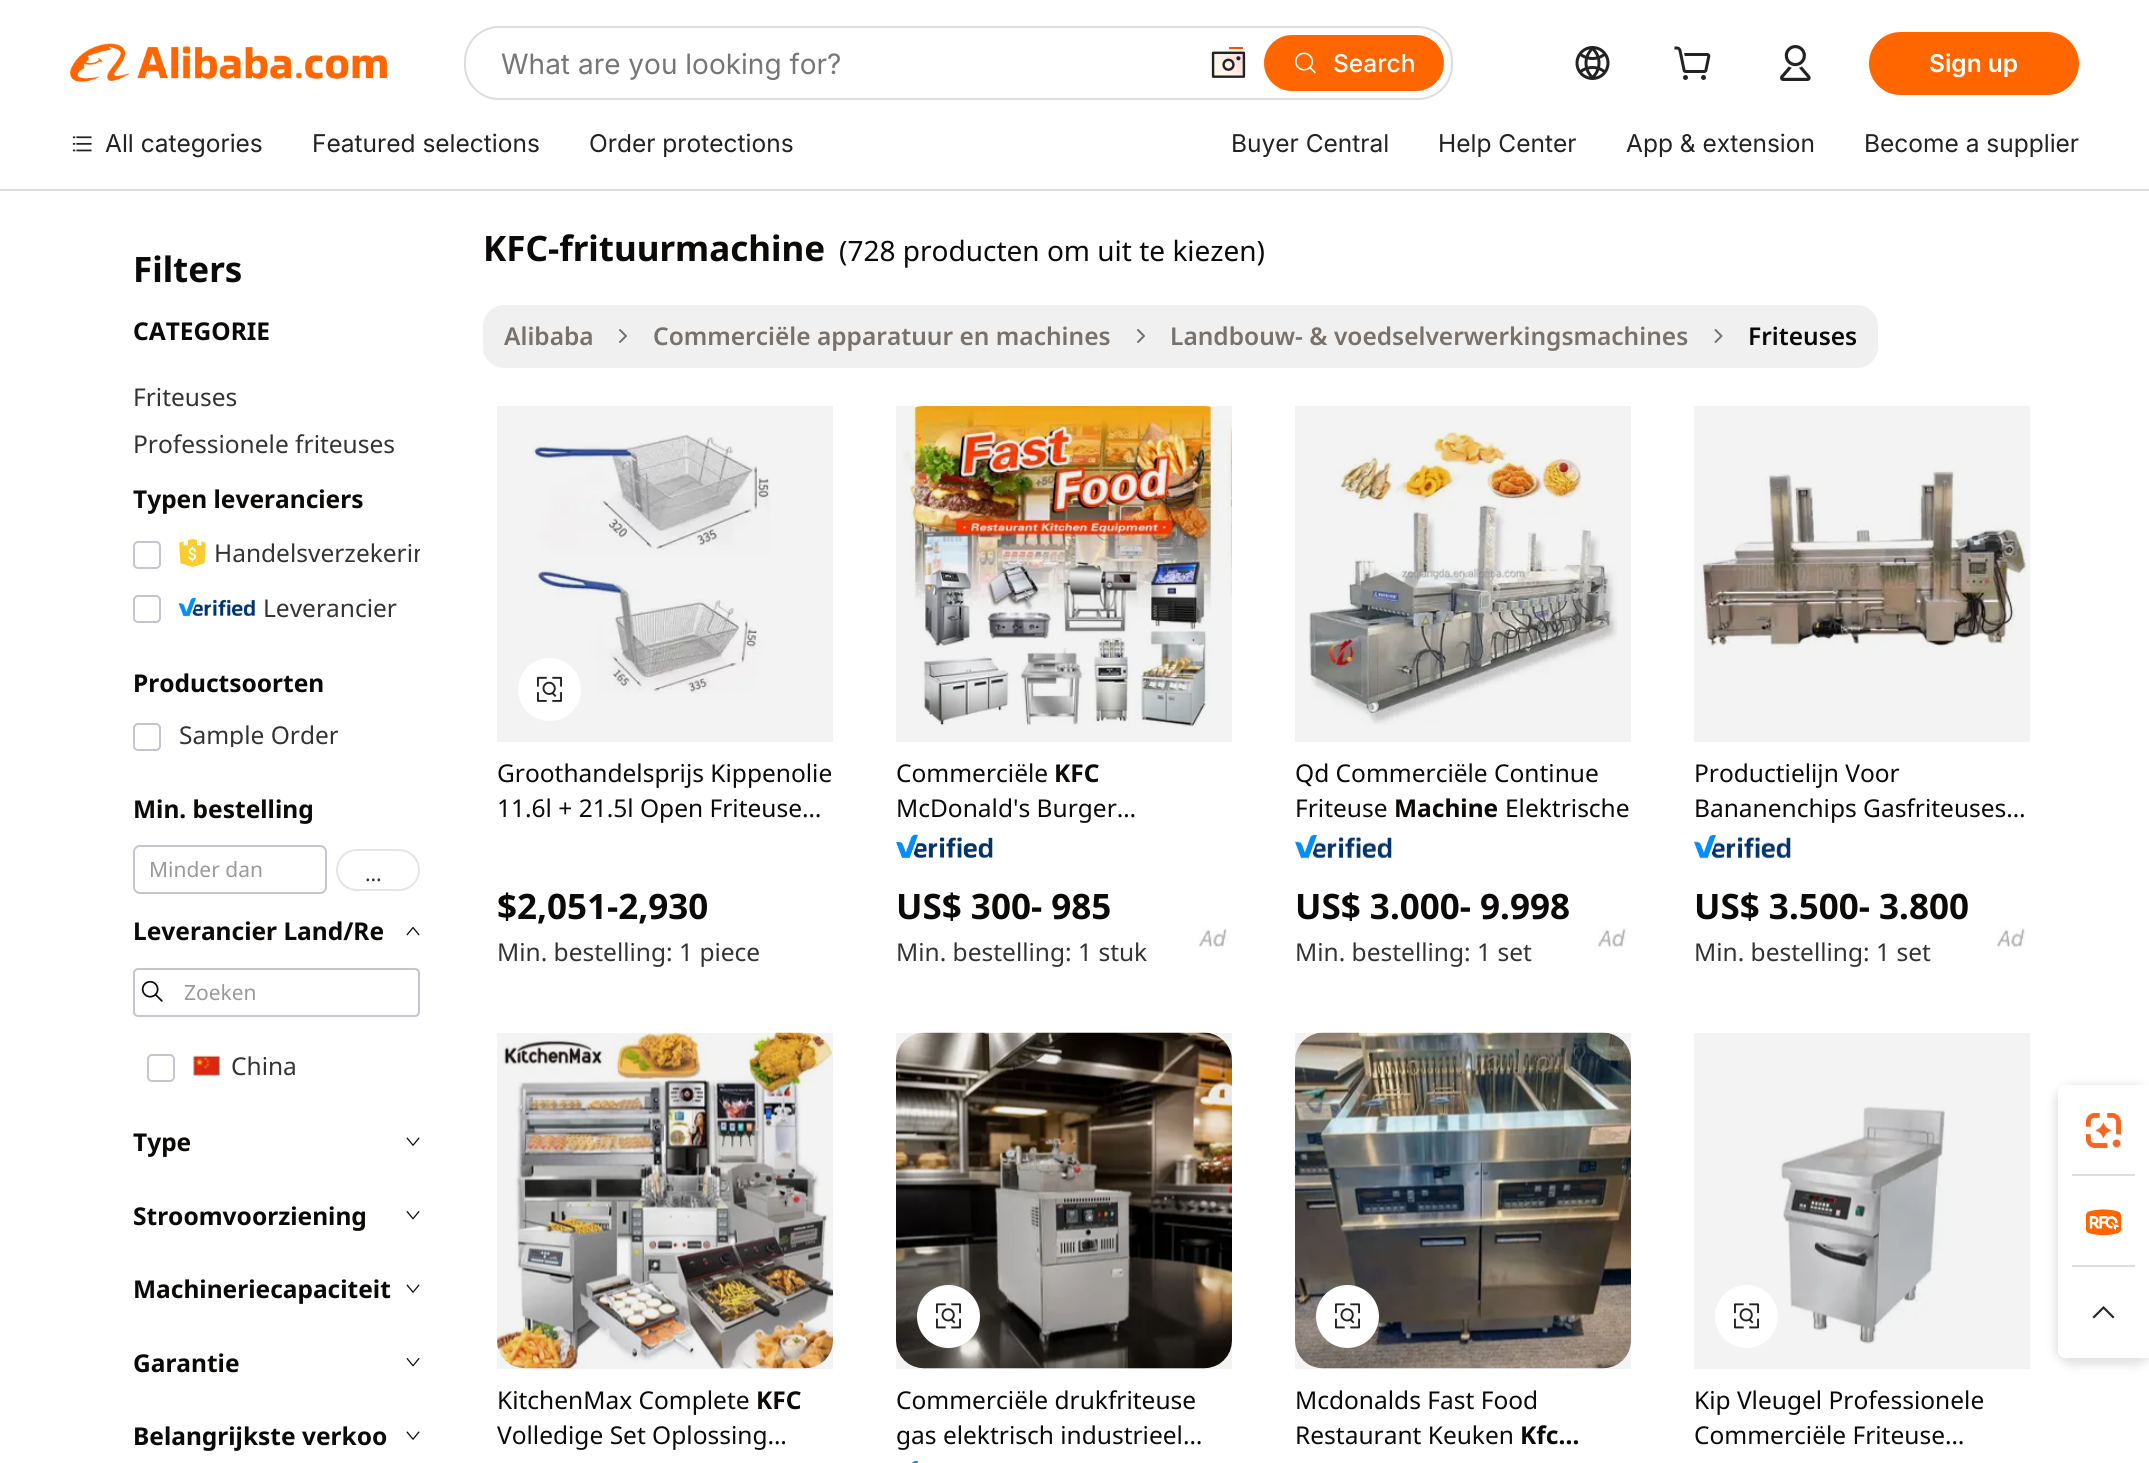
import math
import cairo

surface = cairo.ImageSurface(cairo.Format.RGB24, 2149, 1463)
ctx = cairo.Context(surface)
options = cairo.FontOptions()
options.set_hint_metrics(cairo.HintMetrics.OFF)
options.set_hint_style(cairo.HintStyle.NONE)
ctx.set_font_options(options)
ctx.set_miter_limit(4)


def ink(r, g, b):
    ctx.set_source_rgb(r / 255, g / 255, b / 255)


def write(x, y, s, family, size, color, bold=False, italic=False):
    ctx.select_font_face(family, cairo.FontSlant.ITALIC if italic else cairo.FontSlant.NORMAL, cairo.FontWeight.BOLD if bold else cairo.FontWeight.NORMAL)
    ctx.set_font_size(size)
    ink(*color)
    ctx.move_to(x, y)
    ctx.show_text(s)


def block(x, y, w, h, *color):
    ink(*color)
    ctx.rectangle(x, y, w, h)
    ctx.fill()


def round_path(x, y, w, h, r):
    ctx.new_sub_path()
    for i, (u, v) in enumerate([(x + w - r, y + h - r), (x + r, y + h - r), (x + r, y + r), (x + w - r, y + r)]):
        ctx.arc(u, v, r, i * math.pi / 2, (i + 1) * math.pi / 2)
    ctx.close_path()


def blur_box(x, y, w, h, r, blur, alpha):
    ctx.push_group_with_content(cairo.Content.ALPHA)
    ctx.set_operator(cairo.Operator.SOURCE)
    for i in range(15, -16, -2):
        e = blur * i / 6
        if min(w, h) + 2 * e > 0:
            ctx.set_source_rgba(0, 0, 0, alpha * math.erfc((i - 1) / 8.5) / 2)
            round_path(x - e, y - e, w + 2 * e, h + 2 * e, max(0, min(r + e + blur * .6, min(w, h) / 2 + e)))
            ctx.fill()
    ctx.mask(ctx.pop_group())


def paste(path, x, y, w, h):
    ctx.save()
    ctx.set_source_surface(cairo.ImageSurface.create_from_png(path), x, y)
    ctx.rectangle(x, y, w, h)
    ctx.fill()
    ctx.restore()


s1 = dict(family="Inter", size=28, color=(118, 118, 118))
s2 = dict(family="Inter Medium", size=24.5, color=(255, 255, 255))
s3 = dict(family="Inter SemiBold", size=24.5, color=(255, 255, 255))
s4 = dict(family="Inter", size=24.5, color=(34, 34, 34))
s5 = dict(family="Noto Sans", size=35, color=(12, 10, 9), bold=True)
s6 = dict(family="Noto Sans", size=24.5, color=(12, 10, 9), bold=True)
s7 = dict(family="Noto Sans", size=24.5, color=(51, 51, 51))
s8 = dict(family="Noto Sans", size=21, color=(153, 153, 153))
s9 = dict(family="Noto Sans", size=21, color=(51, 51, 51))
s10 = dict(family="Noto Sans", size=28, color=(12, 10, 9))
s11 = dict(family="Noto Sans SemiBold", size=24.5, color=(120, 113, 108))
s12 = dict(family="Noto Sans SemiBold", size=24.5, color=(12, 10, 9))
s13 = dict(family="Noto Sans", size=24.5, color=(12, 10, 9))

ink(255, 255, 255)
ctx.paint()
block(0, 189, 2149, 2, 221, 221, 221)
paste("pic1.png", 70, 43, 317, 39)
round_path(464, 26, 989, 74, 35)
ctx.fill()
ink(255, 255, 255)
round_path(466, 28, 985, 70, 33)
ctx.fill()
write(501, 74, "What are you looking for?", **s1)
paste("pic2.png", 1211, 47, 35, 31)
ink(255, 102, 0)
round_path(1264, 35, 180, 56, 28)
ctx.fill()
paste("pic3.png", 1295, 52, 21, 22)
write(1333, 72, "Search", **s2)
paste("pic4.png", 1575, 46, 35, 34)
paste("pic5.png", 1674, 46, 37, 34)
paste("pic6.png", 1780, 45, 31, 36)
ink(255, 102, 0)
round_path(1869, 32, 210, 63, 31.5)
ctx.fill()
write(1929, 72, "Sign up", **s3)
paste("pic7.png", 72, 136, 20, 16)
write(105, 152, "All categories", **s4)
write(312, 152, "Featured selections", **s4)
write(589, 152, "Order protections", **s4)
write(1231, 152, "Buyer Central", **s4)
write(1438, 152, "Help Center", **s4)
write(1626, 152, "App & extension", **s4)
write(1864, 152, "Become a supplier", **s4)
write(133, 282, "Filters", **s5)
write(133, 340, "CATEGORIE", **s6)
write(133, 406, "Friteuses", **s7)
write(133, 453, "Professionele friteuses", **s7)
write(133, 508, "Typen leveranciers", **s6)
round_path(134, 542, 26, 26, 4)
ink(196, 198, 207)
ctx.stroke()
paste("pic8.png", 179, 539, 27, 28)
ctx.save()
ctx.rectangle(214, 536, 206, 35)
ctx.clip()
write(214, 562, "Handelsverzekerin", **s7)
ctx.restore()
round_path(134, 596, 26, 26, 4)
ctx.stroke()
paste("pic9.png", 178, 597, 77, 20)
write(263, 617, "Leverancier", **s7)
write(133, 692, "Productsoorten", **s6)
round_path(134, 724, 26, 26, 4)
ink(196, 198, 207)
ctx.stroke()
ctx.save()
ctx.rectangle(179, 723, 159, 24)
ctx.clip()
write(179, 744, "Sample Order", **s7)
ctx.restore()
write(133, 818, "Min. bestelling", **s6)
round_path(134, 846, 192, 47, 6)
ink(196, 198, 207)
ctx.stroke()
write(149, 877, "Minder dan", **s8)
round_path(337, 850, 82, 40, 20)
ink(231, 229, 228)
ctx.stroke()
write(365, 881, "…", **s9)
write(133, 940, "Leverancier Land/Re", **s6)
paste("pic10.png", 406, 927, 14, 9)
round_path(134, 969, 285, 47, 4)
ink(196, 198, 207)
ctx.stroke()
paste("pic11.png", 141, 980, 22, 22)
write(184, 1000, "Zoeken", **s8)
round_path(148, 1055, 26, 26, 4)
ink(196, 198, 207)
ctx.stroke()
paste("pic12.png", 193, 1055, 28, 21)
write(231, 1075, "China", **s7)
write(133, 1151, "Type", **s6)
paste("pic13.png", 406, 1137, 14, 9)
write(133, 1225, "Stroomvoorziening", **s6)
paste("pic14.png", 406, 1211, 14, 9)
write(133, 1298, "Machineriecapaciteit", **s6)
paste("pic13.png", 406, 1284, 14, 9)
write(133, 1372, "Garantie", **s6)
paste("pic14.png", 406, 1358, 14, 9)
write(133, 1445, "Belangrijkste verkoo", **s6)
paste("pic13.png", 406, 1431, 14, 9)
write(483, 261, "KFC-frituurmachine", **s5)
write(839, 261, "(728 producten om uit te kiezen)", **s10)
ink(240, 240, 240)
round_path(483, 305, 1395, 63, 21)
ctx.fill()
write(504, 345, "Alibaba", **s11)
ctx.new_path()
ctx.move_to(620, 342)
ctx.line_to(626, 336)
ctx.line_to(620, 330)
ctx.set_line_cap(cairo.LineCap.ROUND)
ctx.set_line_join(cairo.LineJoin.ROUND)
ctx.stroke()
write(653, 345, "Commerciële apparatuur en machines", **s11)
ctx.new_path()
ctx.move_to(1138, 342)
ctx.line_to(1144, 336)
ctx.line_to(1138, 330)
ctx.stroke()
write(1170, 345, "Landbouw- & voedselverwerkingsmachines", **s11)
ctx.new_path()
ctx.move_to(1715.5, 342)
ctx.line_to(1721.5, 336)
ctx.line_to(1715.5, 330)
ctx.stroke()
write(1748, 345, "Friteuses", **s12)
paste("pic15.png", 533, 434, 237, 260)
ctx.set_source_rgba(0, 0, 0, 0.05)
ctx.rectangle(497, 406, 336, 336)
ctx.fill()
ink(255, 255, 255)
ctx.arc(549.5, 689.5, 31.5, 0, 2 * math.pi)
ctx.fill()
paste("pic16.png", 537, 676, 25, 26)
write(497, 782, "Groothandelsprijs Kippenolie", **s13)
write(497, 817, "11.6l + 21.5l Open Friteuse…", **s13)
write(497, 919, "$2,051-2,930", **s5)
write(497, 961, "Min. bestelling: 1 piece", **s7)
paste("pic17.png", 903, 406, 329, 322)
ctx.set_source_rgba(0, 0, 0, 0.05)
ctx.rectangle(896, 406, 336, 336)
ctx.fill()
write(896, 782, "Commerciële", **s13)
write(1054, 782, "KFC", **s6)
write(896, 817, "McDonald's Burger…", **s13)
paste("pic18.png", 896, 834, 97, 24)
write(896, 919, "US$ 300- 985", **s5)
write(896, 961, "Min. bestelling: 1 stuk", **s7)
paste("pic19.png", 1199, 927, 28, 20)
paste("pic20.png", 1309, 431, 308, 294)
ctx.set_source_rgba(0, 0, 0, 0.05)
ctx.rectangle(1295, 406, 336, 336)
ctx.fill()
write(1295, 782, "Qd Commerciële Continue", **s13)
write(1295, 817, "Friteuse", **s13)
write(1394, 817, "Machine", **s6)
write(1505, 817, "Elektrische", **s13)
paste("pic21.png", 1295, 835, 97, 24)
write(1295, 919, "US$ 3.000- 9.998", **s5)
write(1295, 961, "Min. bestelling: 1 set", **s7)
paste("pic22.png", 1598, 927, 28, 20)
paste("pic23.png", 1701, 469, 326, 179)
ctx.set_source_rgba(0, 0, 0, 0.05)
ctx.rectangle(1694, 406, 336, 336)
ctx.fill()
write(1694, 782, "Productielijn Voor", **s13)
write(1694, 817, "Bananenchips Gasfriteuses…", **s13)
paste("pic24.png", 1694, 835, 97, 24)
write(1694, 919, "US$ 3.500- 3.800", **s5)
write(1694, 961, "Min. bestelling: 1 set", **s7)
paste("pic22.png", 1997, 927, 28, 20)
paste("pic25.png", 497, 1032, 336, 337)
ctx.set_source_rgba(0, 0, 0, 0.05)
ctx.rectangle(497, 1033, 336, 336)
ctx.fill()
write(497, 1409, "KitchenMax Complete", **s13)
write(756, 1409, "KFC", **s6)
write(497, 1444, "Volledige Set Oplossing…", **s13)
paste("pic26.png", 896, 1032, 336, 337)
ctx.set_source_rgba(0, 0, 0, 0.05)
ctx.rectangle(896, 1033, 336, 336)
ctx.fill()
ink(255, 255, 255)
ctx.arc(948.5, 1316.5, 31.5, 0, 2 * math.pi)
ctx.fill()
paste("pic27.png", 936, 1303, 25, 26)
write(896, 1409, "Commerciële drukfriteuse", **s13)
write(896, 1444, "gas elektrisch industrieel…", **s13)
paste("pic28.png", 912, 1461, 6, 2)
paste("pic29.png", 1295, 1032, 336, 337)
ctx.set_source_rgba(0, 0, 0, 0.05)
ctx.rectangle(1295, 1033, 336, 336)
ctx.fill()
ink(255, 255, 255)
ctx.arc(1347.5, 1316.5, 31.5, 0, 2 * math.pi)
ctx.fill()
paste("pic27.png", 1335, 1303, 25, 26)
write(1295, 1409, "Mcdonalds Fast Food", **s13)
write(1295, 1444, "Restaurant Keuken", **s13)
write(1520, 1444, "Kfc…", **s6)
paste("pic30.png", 1779, 1106, 166, 238)
ctx.set_source_rgba(0, 0, 0, 0.05)
ctx.rectangle(1694, 1033, 336, 336)
ctx.fill()
ink(255, 255, 255)
ctx.arc(1746.5, 1316.5, 31.5, 0, 2 * math.pi)
ctx.fill()
paste("pic27.png", 1734, 1303, 25, 26)
write(1694, 1409, "Kip Vleugel Professionele", **s13)
write(1694, 1444, "Commerciële Friteuse…", **s13)
ink(0, 0, 0)
blur_box(2055, 1085, 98, 280, 18, 5, 0.12)
ink(255, 255, 255)
ctx.new_path()
ctx.move_to(2072, 1085)
ctx.line_to(2149, 1085)
ctx.line_to(2149, 1358)
ctx.line_to(2072, 1358)
ctx.curve_to(2064.5, 1358, 2058, 1351.5, 2058, 1344)
ctx.line_to(2058, 1099)
ctx.curve_to(2058, 1091.5, 2064.5, 1085, 2072, 1085)
ctx.close_path()
ctx.fill()
round_path(2058, 1085, 91, 91, 7)
ctx.fill()
paste("pic31.png", 2086, 1113, 35, 35)
block(2072, 1174, 63, 2, 221, 221, 221)
paste("pic32.png", 2086, 1209, 35, 27)
block(2072, 1265, 63, 2, 221, 221, 221)
ink(255, 255, 255)
round_path(2058, 1267, 91, 91, 7)
ctx.fill()
ink(34, 34, 34)
ctx.new_path()
ctx.move_to(2103.5, 1306)
ctx.line_to(2114.5, 1317)
ctx.line_to(2113, 1318.5)
ctx.line_to(2103.5, 1309)
ctx.line_to(2094, 1318.5)
ctx.line_to(2092.5, 1317)
ctx.close_path()
ctx.fill()
surface.write_to_png("screenshot.png")
